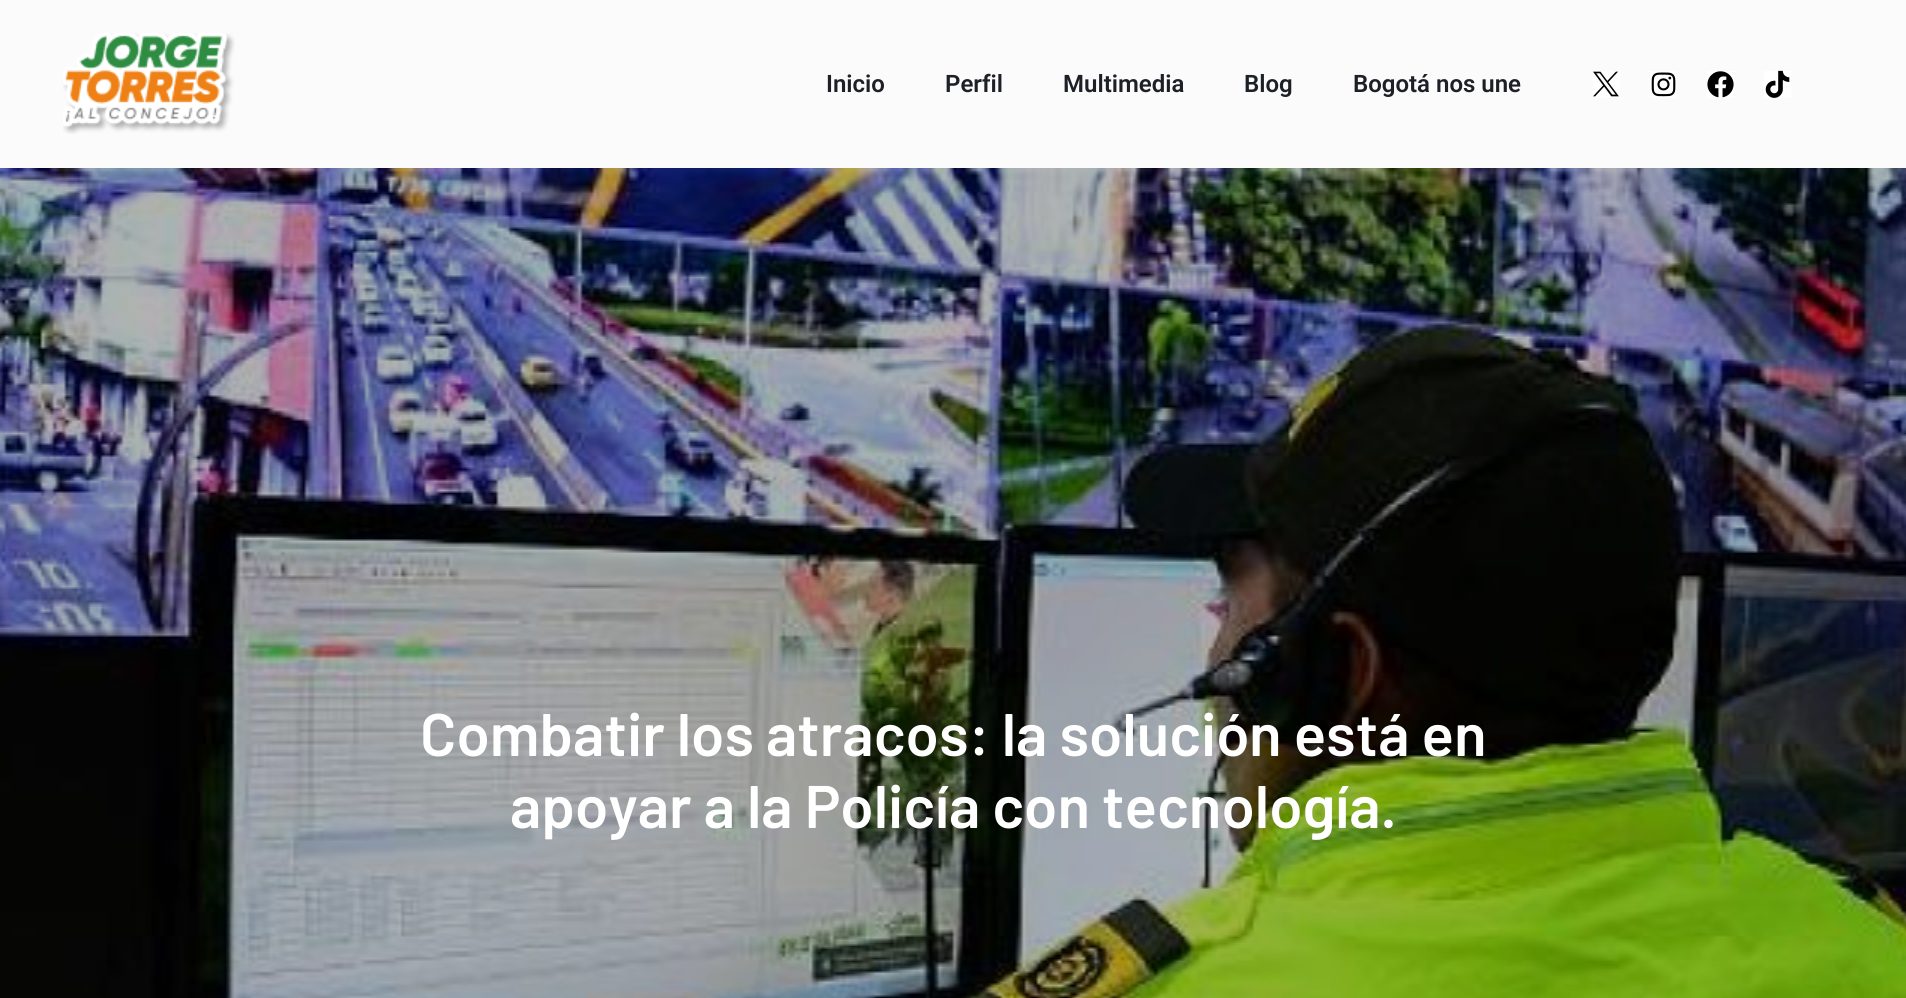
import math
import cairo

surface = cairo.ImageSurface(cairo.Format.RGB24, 1906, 998)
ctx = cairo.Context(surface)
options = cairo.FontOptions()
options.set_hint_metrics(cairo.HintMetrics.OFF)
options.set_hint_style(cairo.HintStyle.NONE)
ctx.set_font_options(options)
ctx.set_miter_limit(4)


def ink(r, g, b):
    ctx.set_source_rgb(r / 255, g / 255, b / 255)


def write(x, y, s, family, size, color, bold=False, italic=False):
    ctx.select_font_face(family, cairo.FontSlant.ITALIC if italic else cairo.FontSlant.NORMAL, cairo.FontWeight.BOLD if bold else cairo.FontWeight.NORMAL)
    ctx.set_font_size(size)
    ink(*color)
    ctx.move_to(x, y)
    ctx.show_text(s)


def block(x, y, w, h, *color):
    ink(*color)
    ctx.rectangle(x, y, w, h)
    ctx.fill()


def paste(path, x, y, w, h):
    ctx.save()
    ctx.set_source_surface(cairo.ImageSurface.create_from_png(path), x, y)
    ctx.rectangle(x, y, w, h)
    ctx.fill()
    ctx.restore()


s1 = dict(family="Roboto SemiBold", size=24, color=(29, 32, 39))
s2 = dict(family="Barlow SemiBold", size=60, color=(255, 255, 255))

ink(251, 251, 251)
ctx.paint()
paste("pic1.png", 63, 33, 172, 101)
write(826, 92, "Inicio", **s1)
write(945, 92, "Perfil", **s1)
write(1063, 92, "Multimedia", **s1)
write(1244, 92, "Blog", **s1)
write(1353, 92, "Bogotá nos une", **s1)
block(1593, 71, 27, 27, 255, 255, 255)
paste("pic2.png", 1593, 71, 26, 26)
block(1650, 71, 27, 27, 255, 255, 255)
paste("pic3.png", 1651, 72, 25, 25)
block(1707, 71, 27, 27, 255, 255, 255)
paste("pic4.png", 1707, 71, 27, 27)
block(1764, 71, 27, 27, 255, 255, 255)
paste("pic5.png", 1765, 70, 25, 28)
paste("pic6.png", 0, 168, 1906, 830)
write(420, 756, "Combatir los atracos: la solución está en", **s2)
write(510, 828, "apoyar a la Policía con tecnología.", **s2)
surface.write_to_png("screenshot.png")
